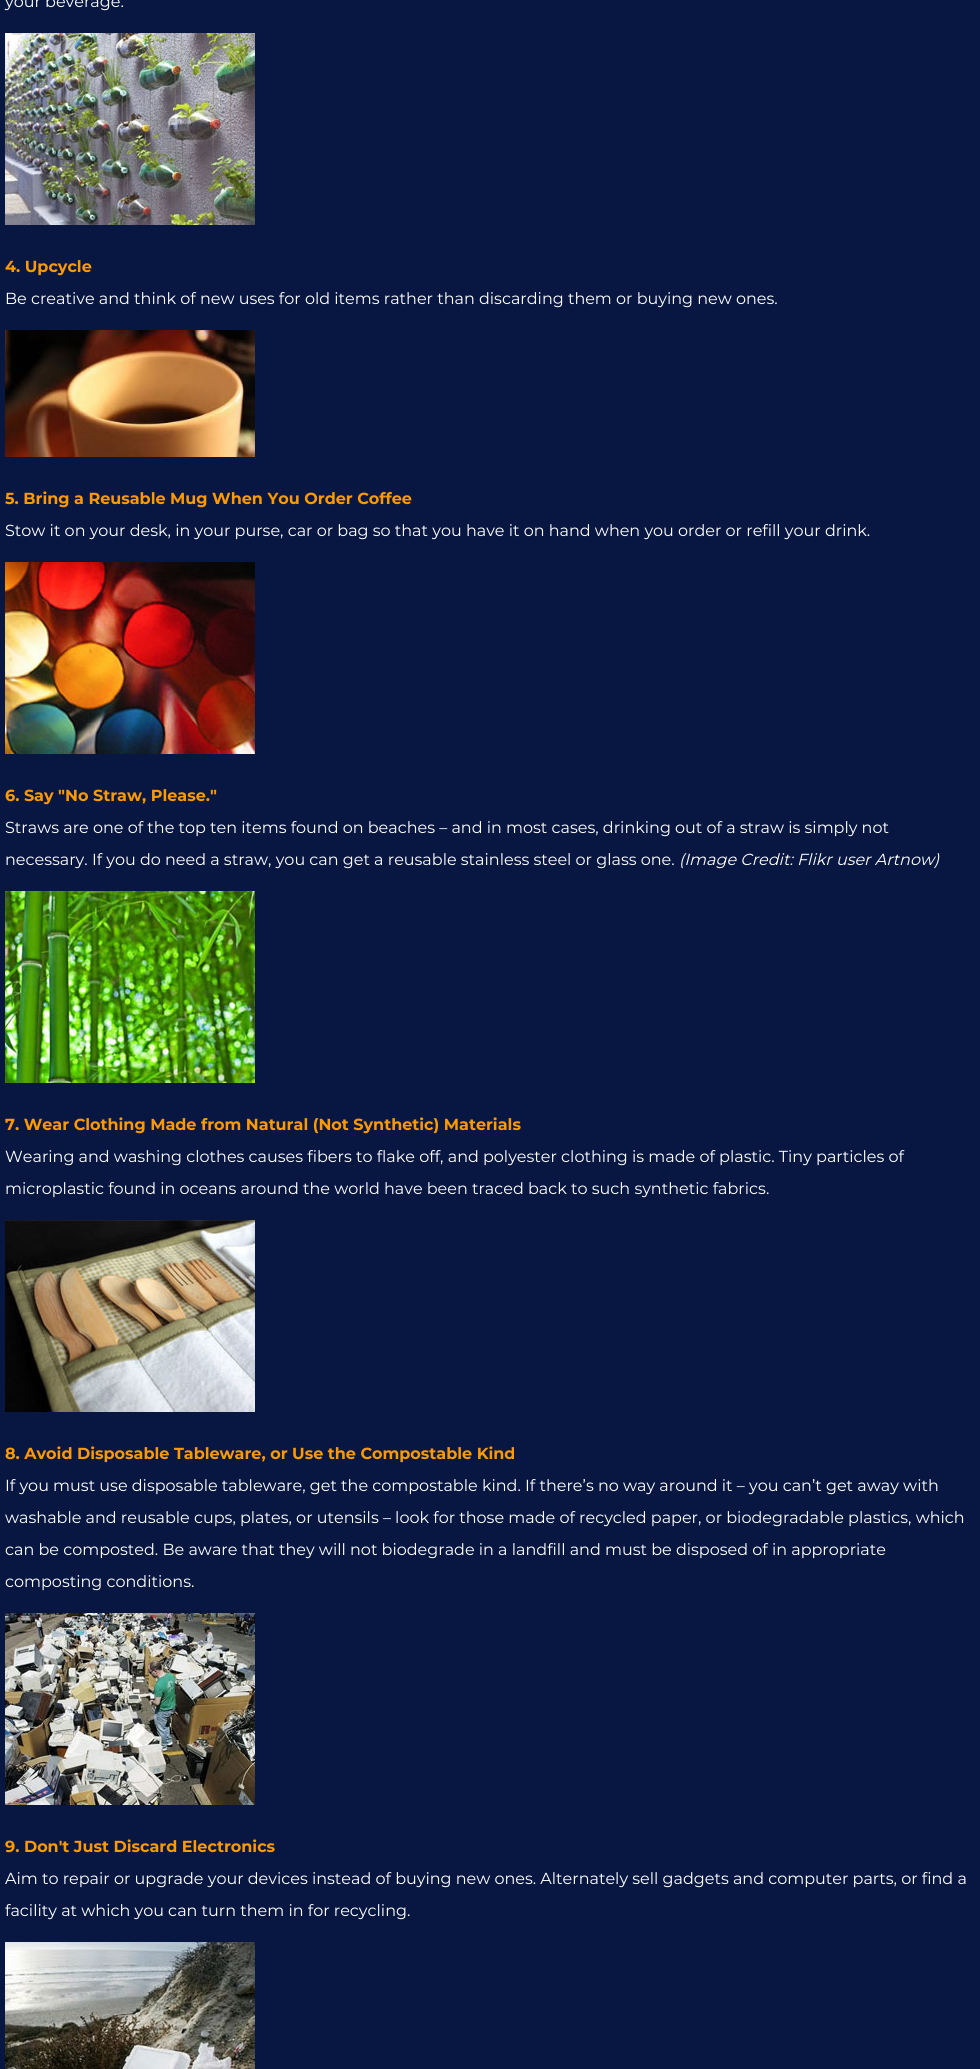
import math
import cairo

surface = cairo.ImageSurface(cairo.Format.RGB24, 980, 2069)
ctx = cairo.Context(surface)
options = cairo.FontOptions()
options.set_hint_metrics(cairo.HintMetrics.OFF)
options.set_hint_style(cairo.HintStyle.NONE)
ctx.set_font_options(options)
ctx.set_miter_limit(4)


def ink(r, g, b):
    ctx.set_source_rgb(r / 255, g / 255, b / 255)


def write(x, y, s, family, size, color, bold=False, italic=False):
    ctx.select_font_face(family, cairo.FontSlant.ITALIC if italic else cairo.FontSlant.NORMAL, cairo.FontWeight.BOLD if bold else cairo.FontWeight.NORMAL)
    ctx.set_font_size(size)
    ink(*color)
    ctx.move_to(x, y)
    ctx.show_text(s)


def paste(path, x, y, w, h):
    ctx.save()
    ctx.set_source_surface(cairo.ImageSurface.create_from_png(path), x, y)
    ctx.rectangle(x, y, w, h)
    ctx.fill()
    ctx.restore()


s1 = dict(family="Montserrat", size=16, color=(255, 255, 255))
s2 = dict(family="Montserrat", size=16, color=(255, 153, 0), bold=True)
s3 = dict(family="Montserrat", size=16, color=(255, 255, 255), italic=True)

ink(8, 23, 66)
ctx.paint()
write(5, 7, "your beverage.", **s1)
paste("pic1.png", 5, 33, 250, 192)
write(5, 272, "4. Upcycle", **s2)
write(5, 304, "Be creative and think of new uses for old items rather than discarding them or buying new ones.", **s1)
paste("pic2.png", 5, 330, 250, 127)
write(5, 504, "5. Bring a Reusable Mug When You Order Coffee", **s2)
write(5, 536, "Stow it on your desk, in your purse, car or bag so that you have it on hand when you order or refill your drink.", **s1)
paste("pic3.png", 5, 562, 250, 192)
write(5, 801, "6. Say \"No Straw, Please.\"", **s2)
write(5, 833, "Straws are one of the top ten items found on beaches – and in most cases, drinking out of a straw is simply not", **s1)
write(5, 865, "necessary. If you do need a straw, you can get a reusable stainless steel or glass one.", **s1)
write(679, 865, "(Image Credit: Flikr user Artnow)", **s3)
paste("pic4.png", 5, 891, 250, 192)
write(5, 1130, "7. Wear Clothing Made from Natural (Not Synthetic) Materials", **s2)
write(5, 1162, "Wearing and washing clothes causes fibers to flake off, and polyester clothing is made of plastic. Tiny particles of", **s1)
write(5, 1194, "microplastic found in oceans around the world have been traced back to such synthetic fabrics.", **s1)
paste("pic5.png", 5, 1220, 250, 192)
write(5, 1459, "8. Avoid Disposable Tableware, or Use the Compostable Kind", **s2)
write(5, 1491, "If you must use disposable tableware, get the compostable kind. If there’s no way around it – you can’t get away with", **s1)
write(5, 1523, "washable and reusable cups, plates, or utensils – look for those made of recycled paper, or biodegradable plastics, which", **s1)
write(5, 1555, "can be composted. Be aware that they will not biodegrade in a landfill and must be disposed of in appropriate", **s1)
write(5, 1587, "composting conditions.", **s1)
paste("pic6.png", 5, 1613, 250, 192)
write(5, 1852, "9. Don't Just Discard Electronics", **s2)
write(5, 1884, "Aim to repair or upgrade your devices instead of buying new ones. Alternately sell gadgets and computer parts, or find a", **s1)
write(5, 1916, "facility at which you can turn them in for recycling.", **s1)
paste("pic7.png", 5, 1942, 250, 127)
surface.write_to_png("screenshot.png")
